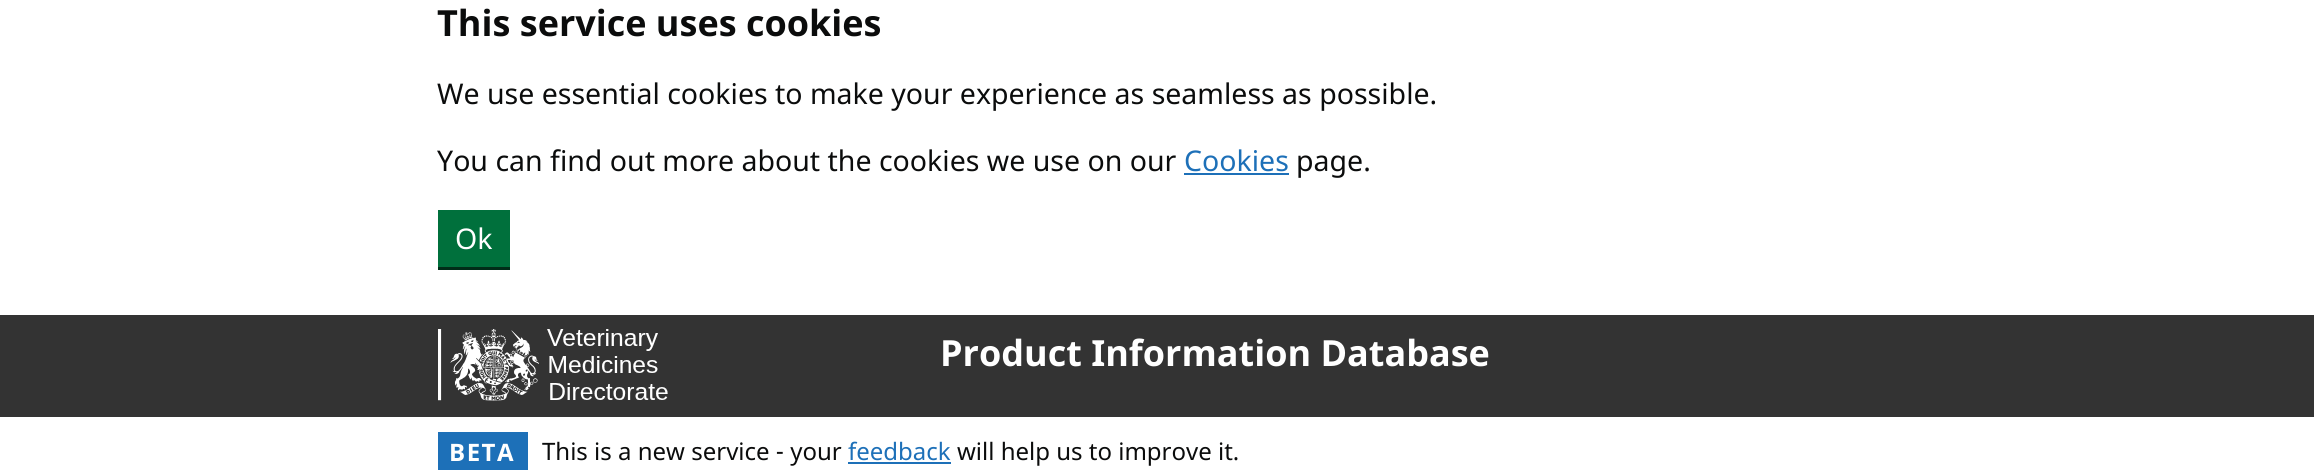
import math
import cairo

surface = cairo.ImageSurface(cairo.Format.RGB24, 2314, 474)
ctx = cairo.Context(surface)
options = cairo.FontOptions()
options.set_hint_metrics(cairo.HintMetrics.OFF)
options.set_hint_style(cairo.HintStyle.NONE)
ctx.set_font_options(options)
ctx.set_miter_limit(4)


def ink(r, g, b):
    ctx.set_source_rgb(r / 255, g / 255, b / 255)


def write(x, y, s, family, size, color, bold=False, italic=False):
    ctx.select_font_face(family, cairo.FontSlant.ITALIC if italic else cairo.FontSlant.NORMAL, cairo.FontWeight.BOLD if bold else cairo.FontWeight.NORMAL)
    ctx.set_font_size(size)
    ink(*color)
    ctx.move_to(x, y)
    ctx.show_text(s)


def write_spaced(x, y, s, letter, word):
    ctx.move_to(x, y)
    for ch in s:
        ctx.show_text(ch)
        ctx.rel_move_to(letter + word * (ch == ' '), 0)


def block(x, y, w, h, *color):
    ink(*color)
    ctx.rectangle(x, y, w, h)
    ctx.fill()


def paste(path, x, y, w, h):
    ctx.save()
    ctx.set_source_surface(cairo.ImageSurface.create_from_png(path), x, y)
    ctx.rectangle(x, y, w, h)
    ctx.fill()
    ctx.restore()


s1 = dict(family="Noto Sans", size=36, color=(11, 12, 12), bold=True)
s2 = dict(family="Noto Sans", size=28.5, color=(11, 12, 12))
s3 = dict(family="Noto Sans", size=28.5, color=(29, 112, 184))
s4 = dict(family="Noto Sans", size=28.5, color=(255, 255, 255))
s5 = dict(family="Noto Sans", size=36, color=(255, 255, 255), bold=True)
s6 = dict(family="Noto Sans", size=24, color=(11, 12, 12))
s7 = dict(family="Noto Sans", size=24, color=(29, 112, 184))

ink(255, 255, 255)
ctx.paint()
write(437, 36, "This service uses cookies", **s1)
write(437, 104, "We use essential cookies to make your experience as seamless as possible.", **s2)
write(437, 171, "You can find out more about the cookies we use on our", **s2)
write(1184, 171, "Cookies", **s3)
block(1184, 173, 105, 2, 29, 112, 184)
write(1296, 171, "page.", **s2)
block(438, 267, 72, 3, 0, 45, 24)
block(438, 210, 72, 57, 0, 112, 60)
write(455, 249, "Ok", **s4)
block(0, 315, 2314, 102, 51, 51, 51)
paste("pic1.png", 438, 329, 230, 72)
write(940, 366, "Product Information Database", **s5)
block(438, 432, 90, 38, 29, 112, 184)
ctx.set_font_size(24)
ink(255, 255, 255)
write_spaced(449, 461, "BETA", 1.5, 0)
write(542, 460, "This is a new service - your", **s6)
write(848, 460, "feedback", **s7)
block(848, 462, 103, 2, 29, 112, 184)
write(957, 460, "will help us to improve it.", **s6)
surface.write_to_png("screenshot.png")
